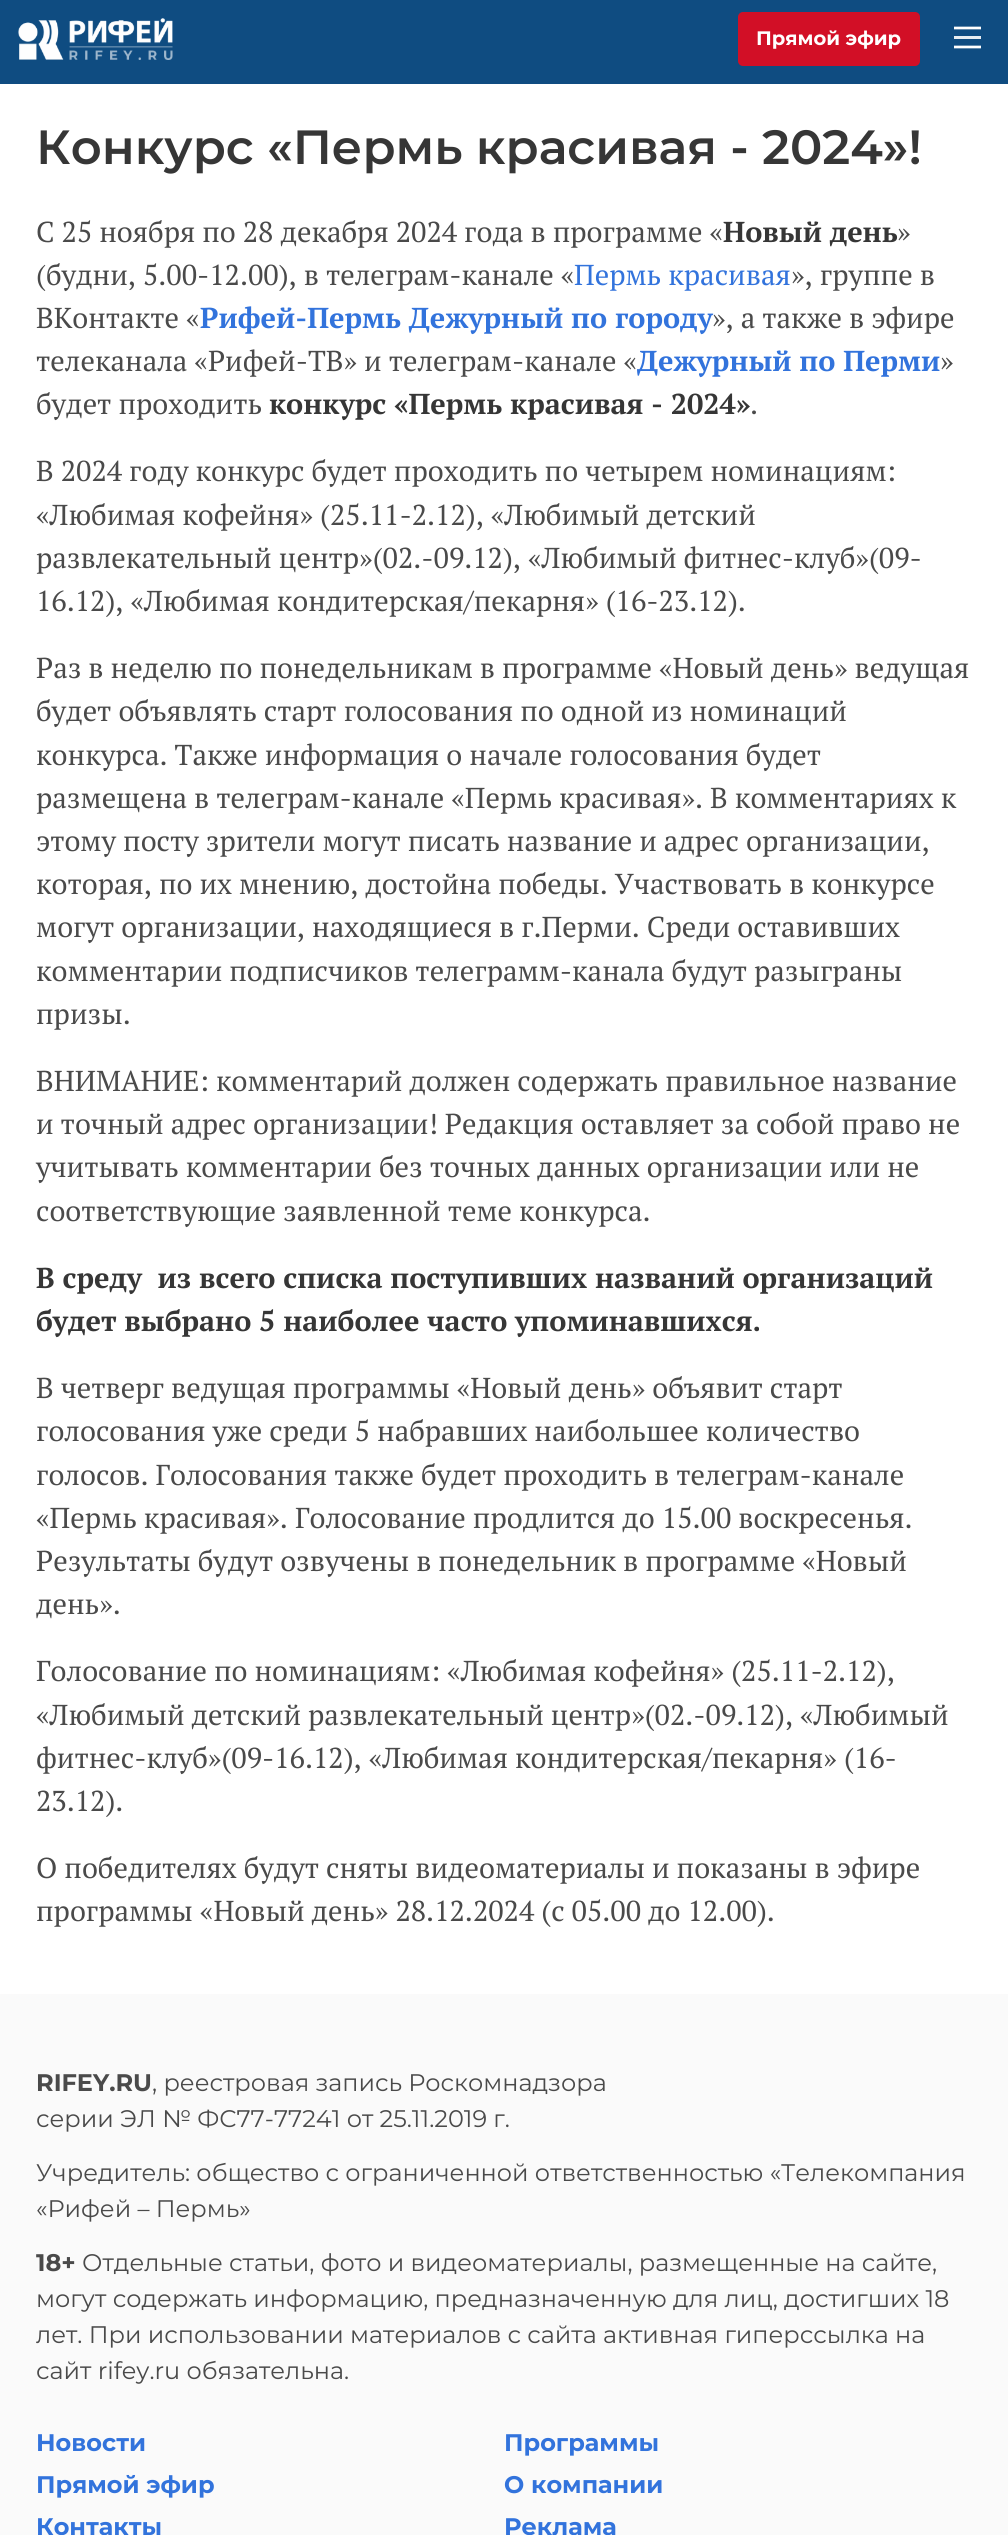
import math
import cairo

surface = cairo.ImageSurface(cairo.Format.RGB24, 1008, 2535)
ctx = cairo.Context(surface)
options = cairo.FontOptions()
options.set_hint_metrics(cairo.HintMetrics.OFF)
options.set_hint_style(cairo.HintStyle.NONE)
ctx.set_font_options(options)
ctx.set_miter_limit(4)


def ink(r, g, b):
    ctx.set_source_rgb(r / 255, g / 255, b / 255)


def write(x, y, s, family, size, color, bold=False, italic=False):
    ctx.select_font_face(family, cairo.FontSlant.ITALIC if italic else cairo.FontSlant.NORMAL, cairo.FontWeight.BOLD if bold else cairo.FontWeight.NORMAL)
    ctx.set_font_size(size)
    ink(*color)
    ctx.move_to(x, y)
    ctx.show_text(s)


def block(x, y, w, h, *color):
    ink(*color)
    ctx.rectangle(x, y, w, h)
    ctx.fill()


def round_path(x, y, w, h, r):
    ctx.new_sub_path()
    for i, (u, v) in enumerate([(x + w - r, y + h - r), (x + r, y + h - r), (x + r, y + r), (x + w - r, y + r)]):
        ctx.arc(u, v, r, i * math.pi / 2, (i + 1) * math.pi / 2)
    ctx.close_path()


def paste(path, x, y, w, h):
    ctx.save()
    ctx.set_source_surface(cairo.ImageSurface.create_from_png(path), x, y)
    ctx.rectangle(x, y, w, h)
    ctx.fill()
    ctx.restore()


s1 = dict(family="Montserrat", size=19.5, color=(255, 255, 255), bold=True)
s2 = dict(family="Montserrat SemiBold", size=48, color=(54, 54, 54))
s3 = dict(family="PT Serif", size=28.8, color=(74, 74, 74))
s4 = dict(family="PT Serif", size=28.8, color=(54, 54, 54), bold=True)
s5 = dict(family="PT Serif", size=28.8, color=(50, 115, 220))
s6 = dict(family="PT Serif", size=28.8, color=(50, 115, 220), bold=True)
s7 = dict(family="Montserrat", size=24, color=(74, 74, 74), bold=True)
s8 = dict(family="Montserrat", size=24, color=(74, 74, 74))
s9 = dict(family="Montserrat", size=24, color=(50, 115, 220), bold=True)

ink(255, 255, 255)
ctx.paint()
block(0, 0, 1008, 84, 15, 76, 129)
paste("pic1.png", 18, 18, 155, 42)
ink(210, 15, 38)
round_path(738, 12, 182, 54, 5)
ctx.fill()
write(756, 45, "Прямой эфир", **s1)
ctx.new_path()
ctx.move_to(954, 28)
ctx.line_to(981, 28)
ctx.set_line_width(2.7)
ctx.stroke()
block(954, 36, 27, 3, 231, 237, 242)
ctx.new_path()
ctx.move_to(954, 47)
ctx.line_to(981, 47)
ink(255, 255, 255)
ctx.stroke()
write(36, 164, "Конкурс «Пермь красивая - 2024»!", **s2)
write(36, 242, "С 25 ноября по 28 декабря 2024 года в программе «", **s3)
write(723, 242, "Новый день", **s4)
write(897, 242, "»", **s3)
write(36, 285, "(будни, 5.00-12.00), в телеграм-канале «", **s3)
write(574, 285, "Пермь красивая", **s5)
write(791, 285, "», группе в", **s3)
write(36, 328, "ВКонтакте «", **s3)
write(200, 328, "Рифей-Пермь Дежурный по городу", **s6)
write(712, 328, "», а также в эфире", **s3)
write(36, 371, "телеканала «Рифей-ТВ» и телеграм-канале «", **s3)
write(637, 371, "Дежурный по Перми", **s6)
write(940, 371, "»", **s3)
write(36, 414, "будет проходить", **s3)
write(269, 414, "конкурс «Пермь красивая - 2024»", **s4)
write(750, 414, ".", **s3)
write(36, 481, "В 2024 году конкурс будет проходить по четырем номинациям:", **s3)
write(36, 525, "«Любимая кофейня» (25.11-2.12), «Любимый детский", **s3)
write(36, 568, "развлекательный центр»(02.-09.12), «Любимый фитнес-клуб»(09-", **s3)
write(36, 611, "16.12), «Любимая кондитерская/пекарня» (16-23.12).", **s3)
write(36, 678, "Раз в неделю по понедельникам в программе «Новый день» ведущая", **s3)
write(36, 721, "будет объявлять старт голосования по одной из номинаций", **s3)
write(36, 765, "конкурса. Также информация о начале голосования будет", **s3)
write(36, 808, "размещена в телеграм-канале «Пермь красивая». В комментариях к", **s3)
write(36, 851, "этому посту зрители могут писать название и адрес организации,", **s3)
write(36, 894, "которая, по их мнению, достойна победы. Участвовать в конкурсе", **s3)
write(36, 937, "могут организации, находящиеся в г.Перми. Среди оставивших", **s3)
write(36, 981, "комментарии подписчиков телеграмм-канала будут разыграны", **s3)
write(36, 1024, "призы.", **s3)
write(36, 1091, "ВНИМАНИЕ: комментарий должен содержать правильное название", **s3)
write(36, 1134, "и точный адрес организации! Редакция оставляет за собой право не", **s3)
write(36, 1177, "учитывать комментарии без точных данных организации или не", **s3)
write(36, 1221, "соответствующие заявленной теме конкурса.", **s3)
write(36, 1288, "В среду  из всего списка поступивших названий организаций", **s4)
write(36, 1331, "будет выбрано 5 наиболее часто упоминавшихся.", **s4)
write(36, 1398, "В четверг ведущая программы «Новый день» объявит старт", **s3)
write(36, 1441, "голосования уже среди 5 набравших наибольшее количество", **s3)
write(36, 1485, "голосов. Голосования также будет проходить в телеграм-канале", **s3)
write(36, 1528, "«Пермь красивая». Голосование продлится до 15.00 воскресенья.", **s3)
write(36, 1571, "Результаты будут озвучены в понедельник в программе «Новый", **s3)
write(36, 1614, "день».", **s3)
write(36, 1681, "Голосование по номинациям: «Любимая кофейня» (25.11-2.12),", **s3)
write(36, 1725, "«Любимый детский развлекательный центр»(02.-09.12), «Любимый", **s3)
write(36, 1768, "фитнес-клуб»(09-16.12), «Любимая кондитерская/пекарня» (16-", **s3)
write(36, 1811, "23.12).", **s3)
write(36, 1878, "О победителях будут сняты видеоматериалы и показаны в эфире", **s3)
write(36, 1921, "программы «Новый день» 28.12.2024 (с 05.00 до 12.00).", **s3)
block(0, 1994, 1008, 541, 250, 250, 250)
write(36, 2091, "RIFEY.RU", **s7)
write(152, 2091, ", реестровая запись Роскомнадзора", **s8)
write(36, 2127, "серии ЭЛ № ФС77-77241 от 25.11.2019 г.", **s8)
write(36, 2181, "Учредитель: общество с ограниченной ответственностью «Телекомпания", **s8)
write(36, 2217, "«Рифей – Пермь»", **s8)
write(36, 2271, "18+", **s7)
write(82, 2271, "Отдельные статьи, фото и видеоматериалы, размещенные на сайте,", **s8)
write(36, 2307, "могут содержать информацию, предназначенную для лиц, достигших 18", **s8)
write(36, 2343, "лет. При использовании материалов с сайта активная гиперссылка на", **s8)
write(36, 2379, "сайт rifey.ru обязательна.", **s8)
write(36, 2451, "Новости", **s9)
write(504, 2451, "Программы", **s9)
write(36, 2493, "Прямой эфир", **s9)
write(504, 2493, "О компании", **s9)
write(36, 2535, "Контакты", **s9)
write(504, 2535, "Реклама", **s9)
surface.write_to_png("screenshot.png")
